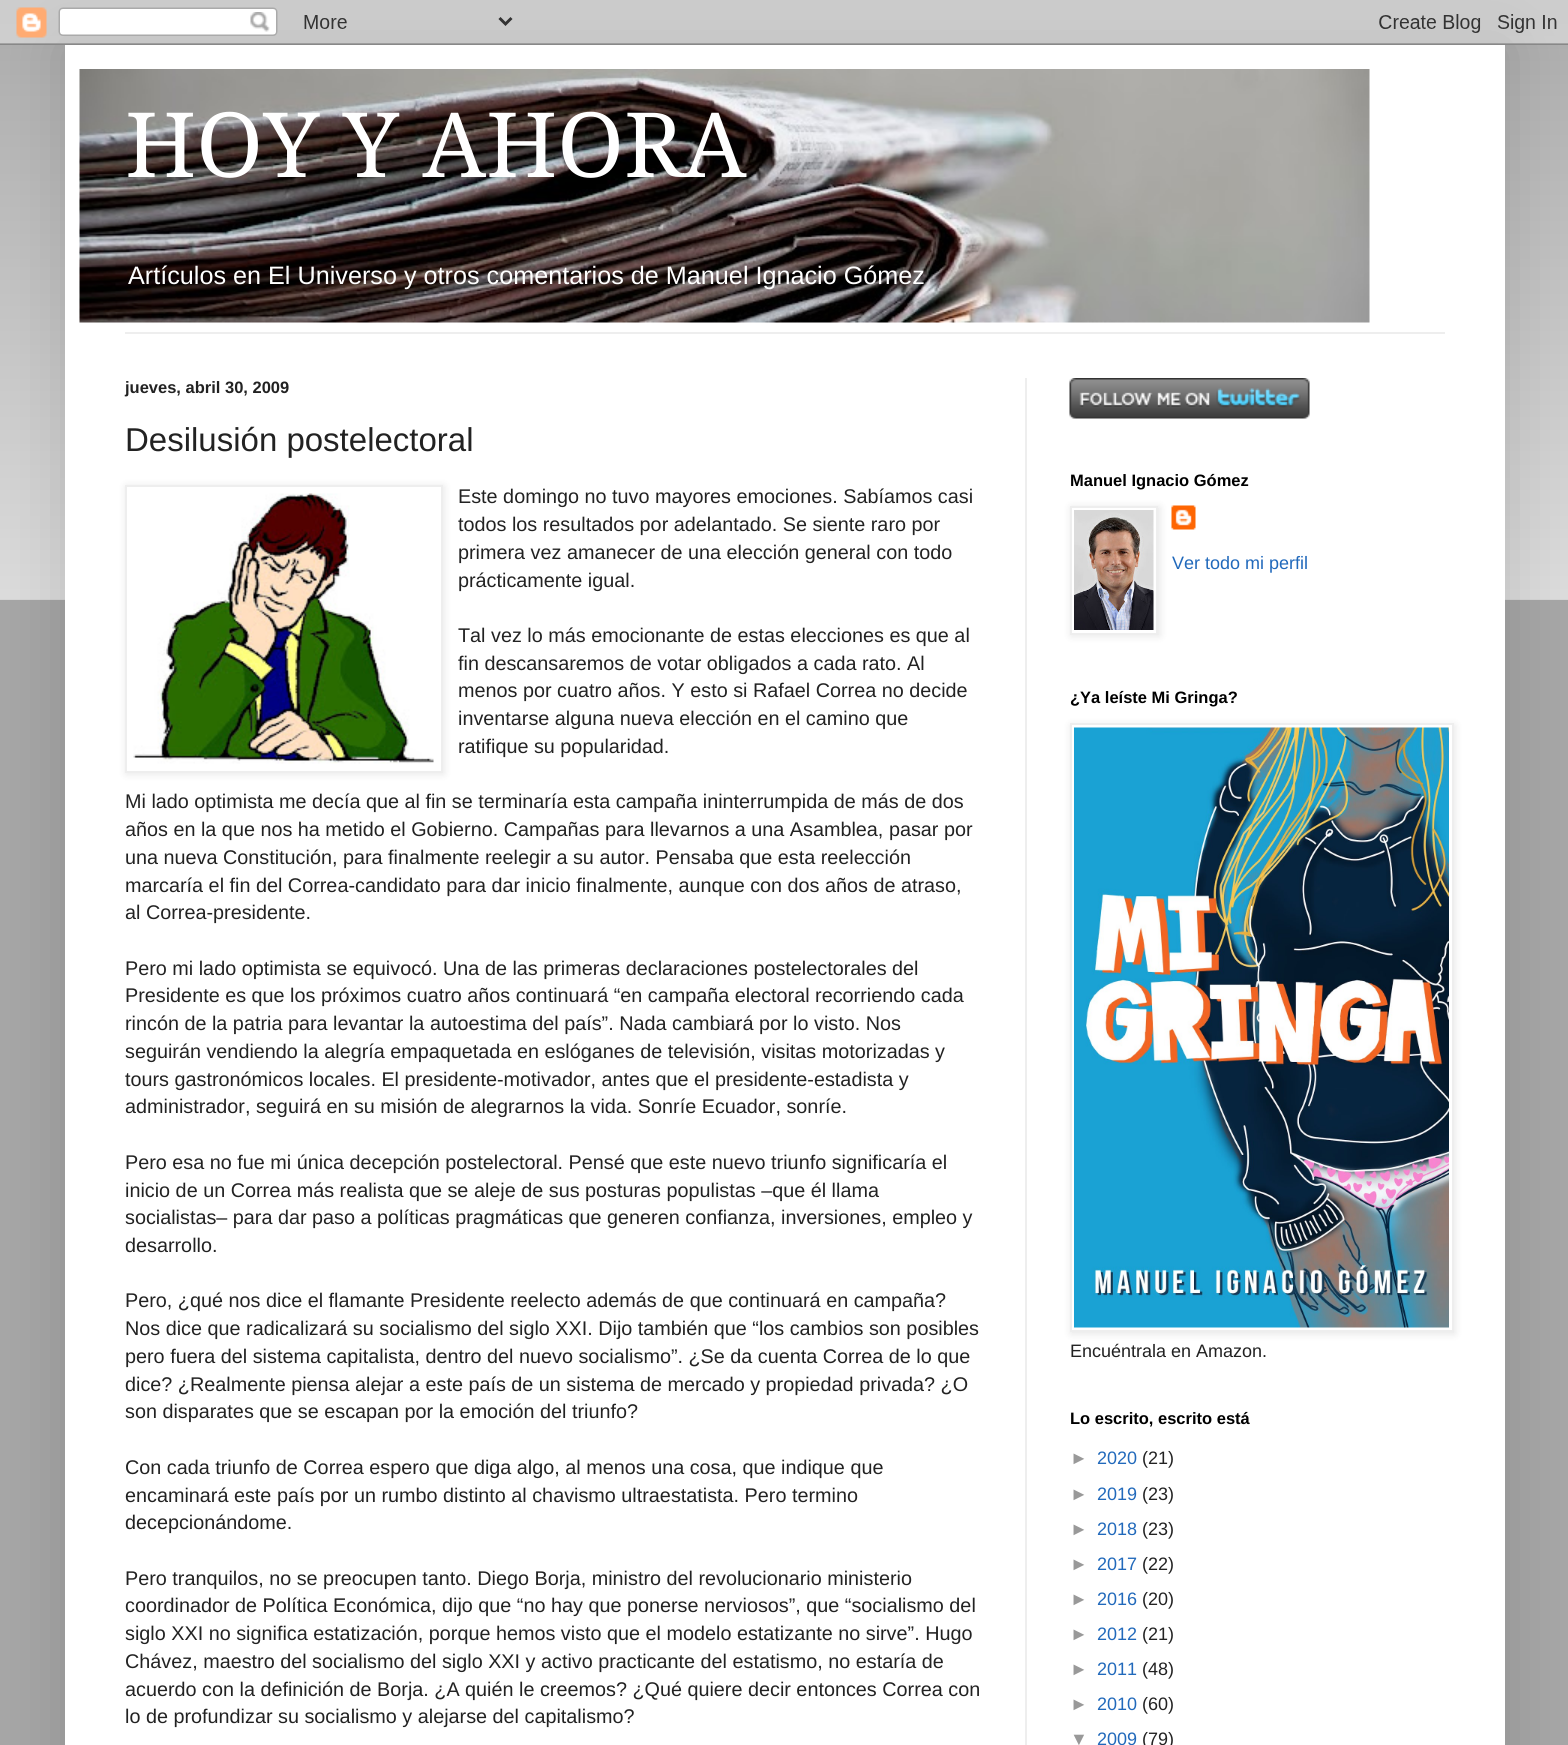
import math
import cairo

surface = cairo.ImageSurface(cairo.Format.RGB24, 1568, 1745)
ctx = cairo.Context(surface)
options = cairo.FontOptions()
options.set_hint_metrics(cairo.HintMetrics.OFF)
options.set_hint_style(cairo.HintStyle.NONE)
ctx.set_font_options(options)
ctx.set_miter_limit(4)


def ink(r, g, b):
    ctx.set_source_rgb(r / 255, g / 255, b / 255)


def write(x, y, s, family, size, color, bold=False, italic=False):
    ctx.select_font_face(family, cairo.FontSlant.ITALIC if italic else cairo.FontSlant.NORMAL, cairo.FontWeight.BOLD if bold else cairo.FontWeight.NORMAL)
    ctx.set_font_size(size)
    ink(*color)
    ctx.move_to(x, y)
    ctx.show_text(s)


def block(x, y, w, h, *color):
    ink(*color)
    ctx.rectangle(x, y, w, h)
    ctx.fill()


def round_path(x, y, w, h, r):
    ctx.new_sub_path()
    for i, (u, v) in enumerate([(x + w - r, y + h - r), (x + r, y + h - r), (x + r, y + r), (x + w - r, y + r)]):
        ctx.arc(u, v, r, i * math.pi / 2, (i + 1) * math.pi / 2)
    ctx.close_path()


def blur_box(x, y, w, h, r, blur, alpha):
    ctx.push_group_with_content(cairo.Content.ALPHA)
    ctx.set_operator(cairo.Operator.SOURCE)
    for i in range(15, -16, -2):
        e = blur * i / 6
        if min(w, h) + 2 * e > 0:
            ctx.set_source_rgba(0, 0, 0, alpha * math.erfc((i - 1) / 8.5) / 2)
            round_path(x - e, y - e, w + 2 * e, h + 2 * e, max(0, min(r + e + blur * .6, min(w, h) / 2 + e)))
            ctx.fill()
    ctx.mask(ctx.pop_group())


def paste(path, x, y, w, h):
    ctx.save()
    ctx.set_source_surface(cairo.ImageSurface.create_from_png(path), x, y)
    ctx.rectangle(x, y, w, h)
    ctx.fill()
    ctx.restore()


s1 = dict(family="Droid Serif", size=90, color=(255, 255, 255))
s2 = dict(family="Liberation Sans", size=25.2, color=(255, 255, 255))
s3 = dict(family="Liberation Sans", size=16.5, color=(34, 34, 34), bold=True)
s4 = dict(family="Liberation Sans", size=33, color=(34, 34, 34))
s5 = dict(family="Liberation Sans", size=19.8, color=(34, 34, 34))
s6 = dict(family="Liberation Sans", size=16.5, color=(0, 0, 0), bold=True)
s7 = dict(family="Liberation Sans", size=18, color=(33, 105, 187))
s8 = dict(family="Liberation Sans", size=18, color=(34, 34, 34))
s9 = dict(family="Liberation Sans", size=18, color=(153, 153, 153))

ink(166, 166, 166)
ctx.paint()
paste("pic1.png", 0, 0, 1568, 600)
ink(0, 0, 0)
blur_box(65, 45, 1440, 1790, 0, 30, 0.15)
paste("pic2.png", 0, 0, 1568, 45)
block(65, 45, 1440, 1700, 255, 255, 255)
paste("pic3.png", 79, 69, 1291, 254)
write(125, 177, "HOY Y AHORA", **s1)
write(128, 284, "Artículos en El Universo y otros comentarios de Manuel Ignacio Gómez", **s2)
block(125, 332, 1320, 2, 238, 238, 238)
block(1025, 378, 2, 1367, 238, 238, 238)
write(125, 393, "jueves, abril 30, 2009", **s3)
write(125, 451, "Desilusión postelectoral", **s4)
ink(0, 0, 0)
blur_box(126, 486, 318, 288, 0, 4, 0.1)
ink(255, 255, 255)
ctx.rectangle(126, 486, 316, 286)
ctx.fill_preserve()
ink(238, 238, 238)
ctx.stroke()
paste("pic4.png", 133, 493, 301, 271)
write(458, 503, "Este domingo no tuvo mayores emociones. Sabíamos casi", **s5)
write(458, 531, "todos los resultados por adelantado. Se siente raro por", **s5)
write(458, 559, "primera vez amanecer de una elección general con todo", **s5)
write(458, 587, "prácticamente igual.", **s5)
write(458, 642, "Tal vez lo más emocionante de estas elecciones es que al", **s5)
write(458, 670, "fin descansaremos de votar obligados a cada rato. Al", **s5)
write(458, 697, "menos por cuatro años. Y esto si Rafael Correa no decide", **s5)
write(458, 725, "inventarse alguna nueva elección en el camino que", **s5)
write(458, 753, "ratifique su popularidad.", **s5)
write(125, 808, "Mi lado optimista me decía que al fin se terminaría esta campaña ininterrumpida de más de dos", **s5)
write(125, 836, "años en la que nos ha metido el Gobierno. Campañas para llevarnos a una Asamblea, pasar por", **s5)
write(125, 864, "una nueva Constitución, para finalmente reelegir a su autor. Pensaba que esta reelección", **s5)
write(125, 892, "marcaría el fin del Correa-candidato para dar inicio finalmente, aunque con dos años de atraso,", **s5)
write(125, 919, "al Correa-presidente.", **s5)
write(125, 975, "Pero mi lado optimista se equivocó. Una de las primeras declaraciones postelectorales del", **s5)
write(125, 1002, "Presidente es que los próximos cuatro años continuará “en campaña electoral recorriendo cada", **s5)
write(125, 1030, "rincón de la patria para levantar la autoestima del país”. Nada cambiará por lo visto. Nos", **s5)
write(125, 1058, "seguirán vendiendo la alegría empaquetada en eslóganes de televisión, visitas motorizadas y", **s5)
write(125, 1086, "tours gastronómicos locales. El presidente-motivador, antes que el presidente-estadista y", **s5)
write(125, 1113, "administrador, seguirá en su misión de alegrarnos la vida. Sonríe Ecuador, sonríe.", **s5)
write(125, 1169, "Pero esa no fue mi única decepción postelectoral. Pensé que este nuevo triunfo significaría el", **s5)
write(125, 1197, "inicio de un Correa más realista que se aleje de sus posturas populistas –que él llama", **s5)
write(125, 1224, "socialistas– para dar paso a políticas pragmáticas que generen confianza, inversiones, empleo y", **s5)
write(125, 1252, "desarrollo.", **s5)
write(125, 1307, "Pero, ¿qué nos dice el flamante Presidente reelecto además de que continuará en campaña?", **s5)
write(125, 1335, "Nos dice que radicalizará su socialismo del siglo XXI. Dijo también que “los cambios son posibles", **s5)
write(125, 1363, "pero fuera del sistema capitalista, dentro del nuevo socialismo”. ¿Se da cuenta Correa de lo que", **s5)
write(125, 1391, "dice? ¿Realmente piensa alejar a este país de un sistema de mercado y propiedad privada? ¿O", **s5)
write(125, 1418, "son disparates que se escapan por la emoción del triunfo?", **s5)
write(125, 1474, "Con cada triunfo de Correa espero que diga algo, al menos una cosa, que indique que", **s5)
write(125, 1502, "encaminará este país por un rumbo distinto al chavismo ultraestatista. Pero termino", **s5)
write(125, 1529, "decepcionándome.", **s5)
write(125, 1585, "Pero tranquilos, no se preocupen tanto. Diego Borja, ministro del revolucionario ministerio", **s5)
write(125, 1612, "coordinador de Política Económica, dijo que “no hay que ponerse nerviosos”, que “socialismo del", **s5)
write(125, 1640, "siglo XXI no significa estatización, porque hemos visto que el modelo estatizante no sirve”. Hugo", **s5)
write(125, 1668, "Chávez, maestro del socialismo del siglo XXI y activo practicante del estatismo, no estaría de", **s5)
write(125, 1696, "acuerdo con la definición de Borja. ¿A quién le creemos? ¿Qué quiere decir entonces Correa con", **s5)
write(125, 1723, "lo de profundizar su socialismo y alejarse del capitalismo?", **s5)
paste("pic5.png", 1069, 378, 241, 41)
write(1070, 486, "Manuel Ignacio Gómez", **s6)
paste("pic7.png", 1171, 505, 25, 25)
ink(0, 0, 0)
blur_box(1071, 507, 89, 129, 0, 4, 0.1)
ink(255, 255, 255)
ctx.rectangle(1071, 507, 86, 127)
ctx.fill_preserve()
ink(238, 238, 238)
ctx.stroke()
paste("pic6.png", 1074, 510, 80, 120)
write(1172, 569, "Ver todo mi perfil", **s7)
write(1070, 703, "¿Ya leíste Mi Gringa?", **s6)
ink(0, 0, 0)
blur_box(1071, 725, 384, 609, 0, 4, 0.1)
ink(255, 255, 255)
ctx.rectangle(1071, 724, 382, 607)
ctx.fill_preserve()
ink(238, 238, 238)
ctx.stroke()
paste("pic8.png", 1074, 727, 375, 601)
write(1070, 1357, "Encuéntrala en Amazon.", **s8)
write(1070, 1424, "Lo escrito, escrito está", **s6)
write(1070, 1464, "►", **s9)
write(1097, 1464, "2020", **s7)
write(1142, 1464, "(21)", **s8)
write(1070, 1500, "►", **s9)
write(1097, 1500, "2019", **s7)
write(1142, 1500, "(23)", **s8)
write(1070, 1535, "►", **s9)
write(1097, 1535, "2018", **s7)
write(1142, 1535, "(23)", **s8)
write(1070, 1570, "►", **s9)
write(1097, 1570, "2017", **s7)
write(1142, 1570, "(22)", **s8)
write(1070, 1605, "►", **s9)
write(1097, 1605, "2016", **s7)
write(1142, 1605, "(20)", **s8)
write(1070, 1640, "►", **s9)
write(1097, 1640, "2012", **s7)
write(1142, 1640, "(21)", **s8)
write(1070, 1675, "►", **s9)
write(1097, 1675, "2011", **s7)
write(1142, 1675, "(48)", **s8)
write(1070, 1710, "►", **s9)
write(1097, 1710, "2010", **s7)
write(1142, 1710, "(60)", **s8)
write(1070, 1745, "▼", **s9)
write(1097, 1745, "2009", **s7)
write(1142, 1745, "(79)", **s8)
surface.write_to_png("screenshot.png")
